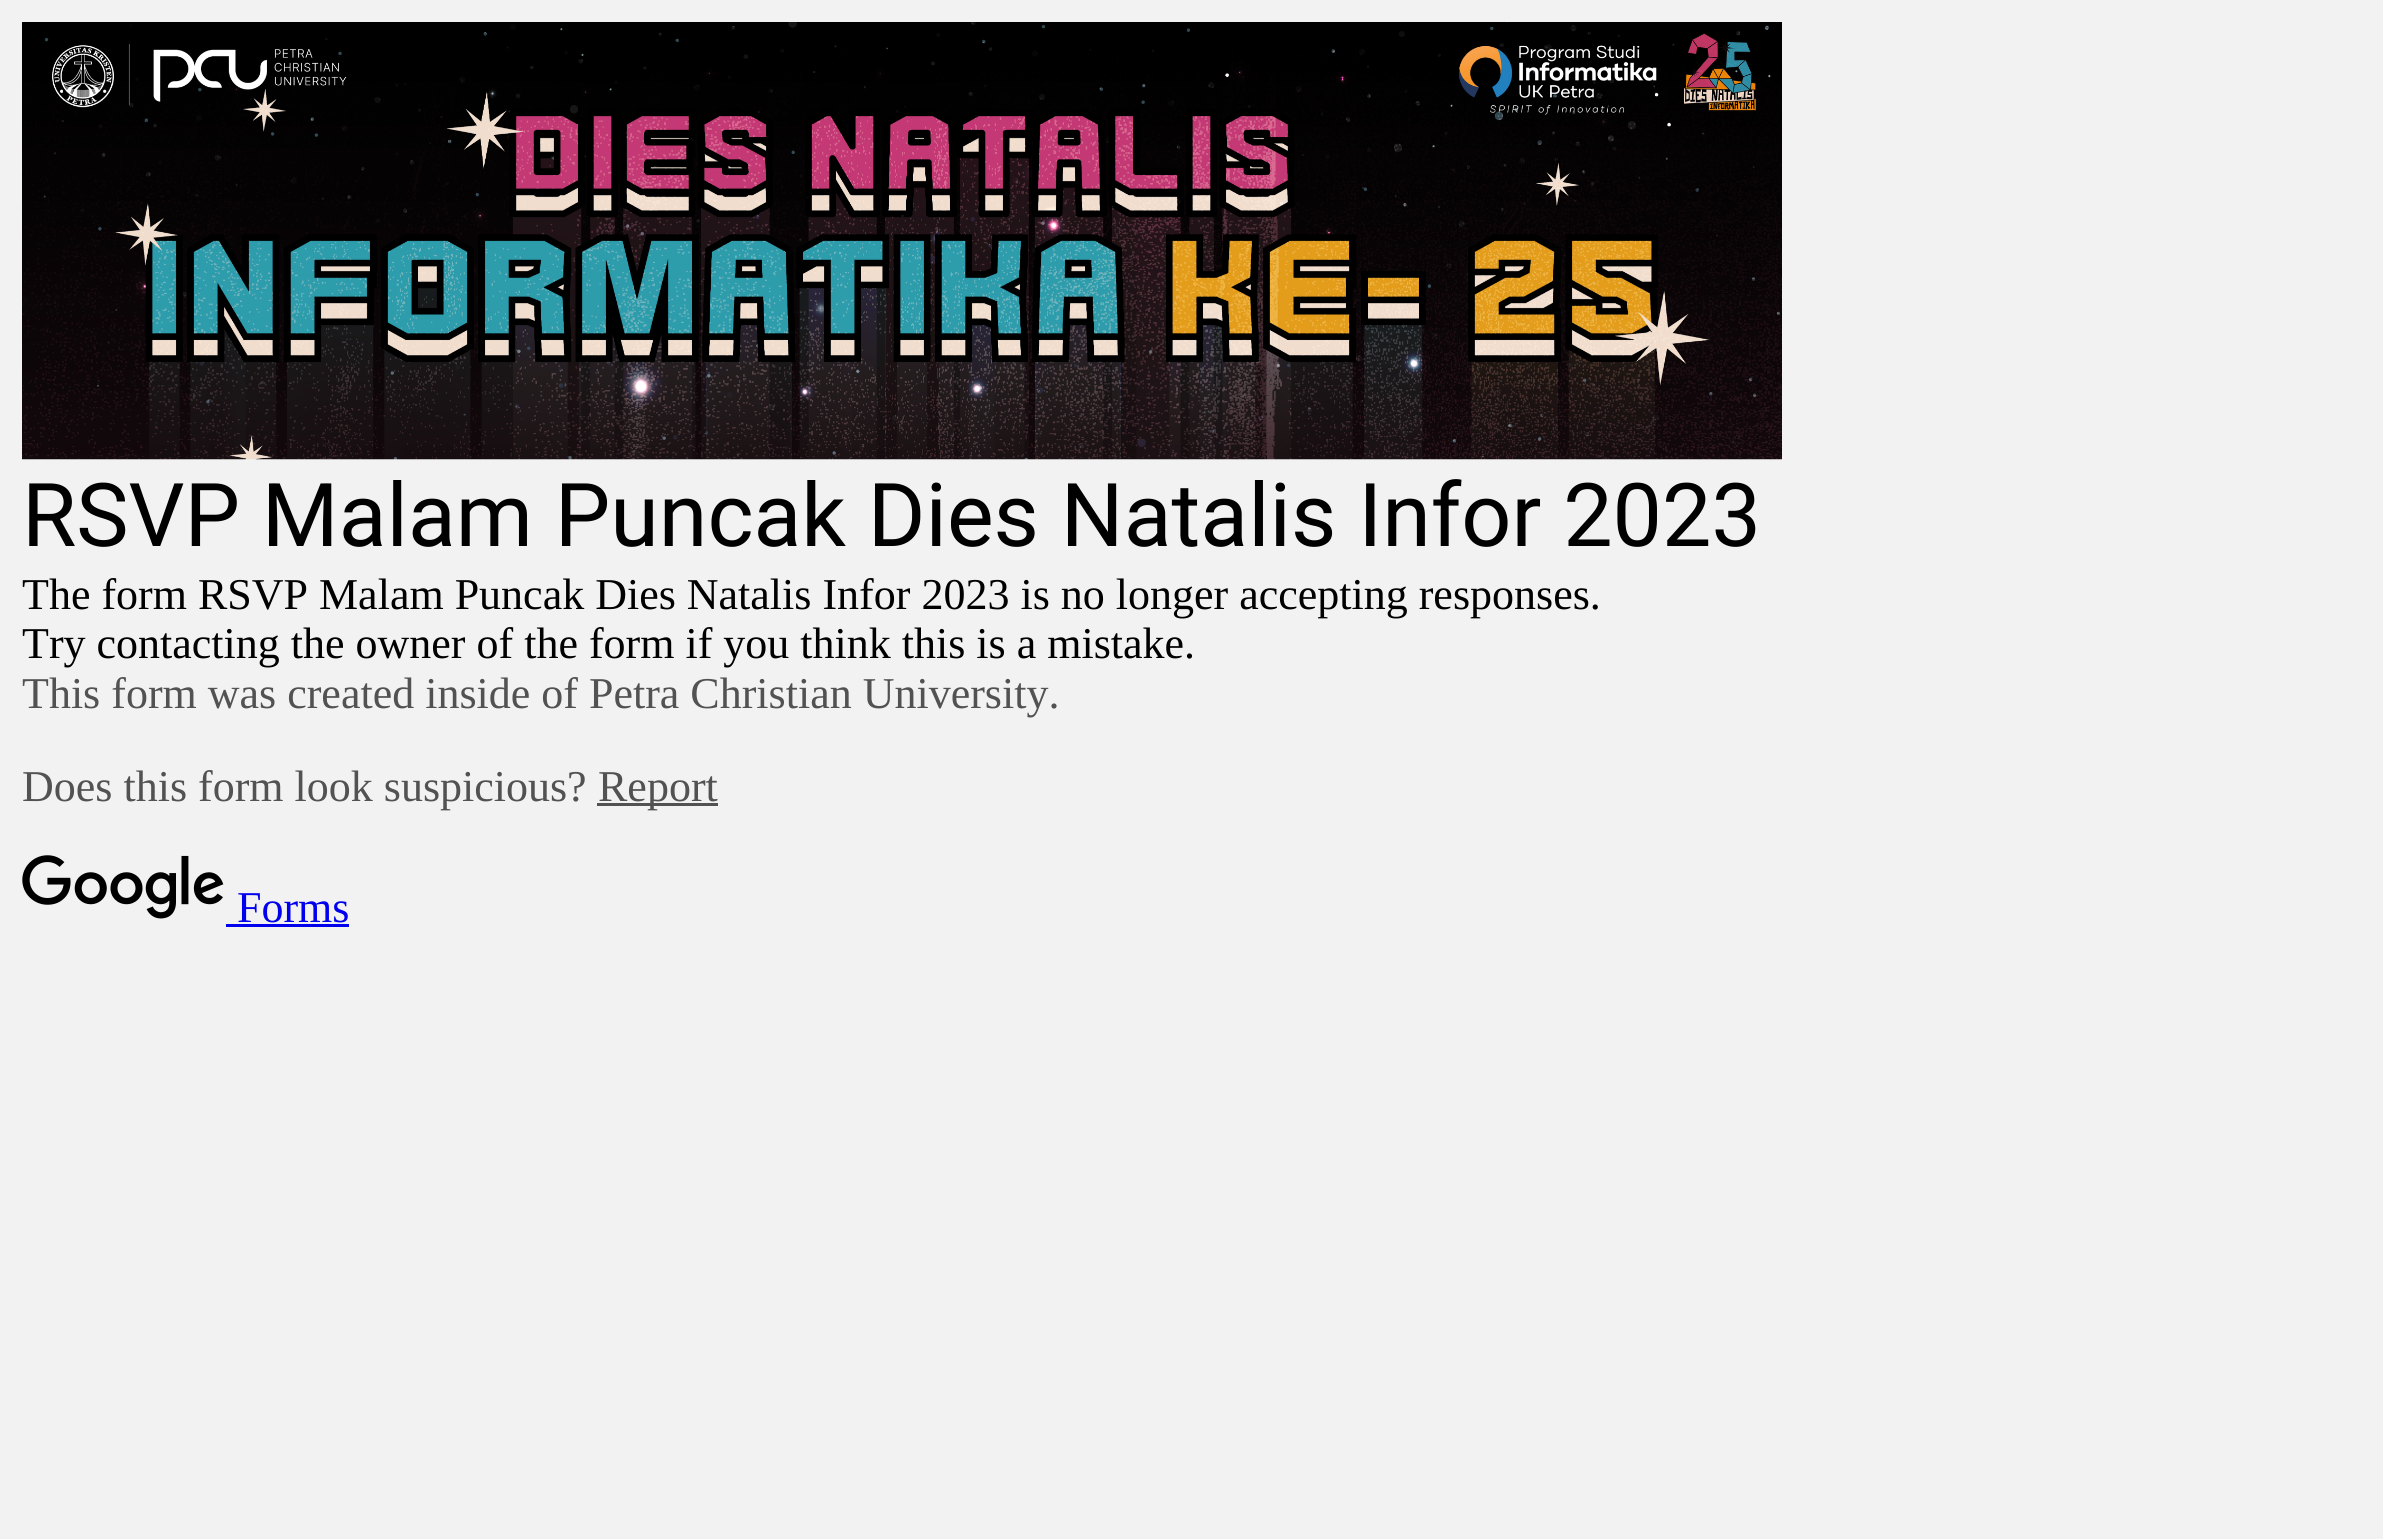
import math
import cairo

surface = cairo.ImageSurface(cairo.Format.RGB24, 2383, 1539)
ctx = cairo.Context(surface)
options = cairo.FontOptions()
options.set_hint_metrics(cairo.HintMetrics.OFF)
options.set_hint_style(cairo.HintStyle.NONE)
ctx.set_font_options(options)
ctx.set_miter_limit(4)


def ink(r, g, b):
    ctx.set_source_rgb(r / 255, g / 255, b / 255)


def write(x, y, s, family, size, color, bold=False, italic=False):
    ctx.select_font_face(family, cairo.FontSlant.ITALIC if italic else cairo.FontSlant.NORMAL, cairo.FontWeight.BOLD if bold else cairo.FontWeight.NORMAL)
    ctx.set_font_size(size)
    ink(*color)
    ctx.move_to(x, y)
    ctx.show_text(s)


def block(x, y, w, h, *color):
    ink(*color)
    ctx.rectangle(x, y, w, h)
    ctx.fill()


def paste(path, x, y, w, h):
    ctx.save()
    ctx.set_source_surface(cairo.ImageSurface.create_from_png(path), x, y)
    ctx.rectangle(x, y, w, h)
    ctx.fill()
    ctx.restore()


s1 = dict(family="Roboto", size=88, color=(0, 0, 0))
s2 = dict(family="Liberation Serif", size=44, color=(0, 0, 0))
s3 = dict(family="Liberation Serif", size=44, color=(82, 82, 82))
s4 = dict(family="Liberation Serif", size=44, color=(0, 0, 238))

ink(242, 242, 242)
ctx.paint()
paste("pic1.png", 22, 22, 1760, 438)
write(22, 546, "RSVP Malam Puncak Dies Natalis Infor 2023", **s1)
write(22, 609, "The form RSVP Malam Puncak Dies Natalis Infor 2023 is no longer accepting responses.", **s2)
write(22, 658, "Try contacting the owner of the form if you think this is a mistake.", **s2)
write(22, 708, "This form was created inside of Petra Christian University.", **s3)
write(22, 801, "Does this form look suspicious?", **s3)
block(597, 803, 121, 3, 82, 82, 82)
write(598, 801, "Report", **s3)
paste("pic2.png", 22, 855, 202, 64)
write(237, 922, "Forms", **s4)
block(226, 924, 123, 3, 0, 0, 238)
surface.write_to_png("screenshot.png")
